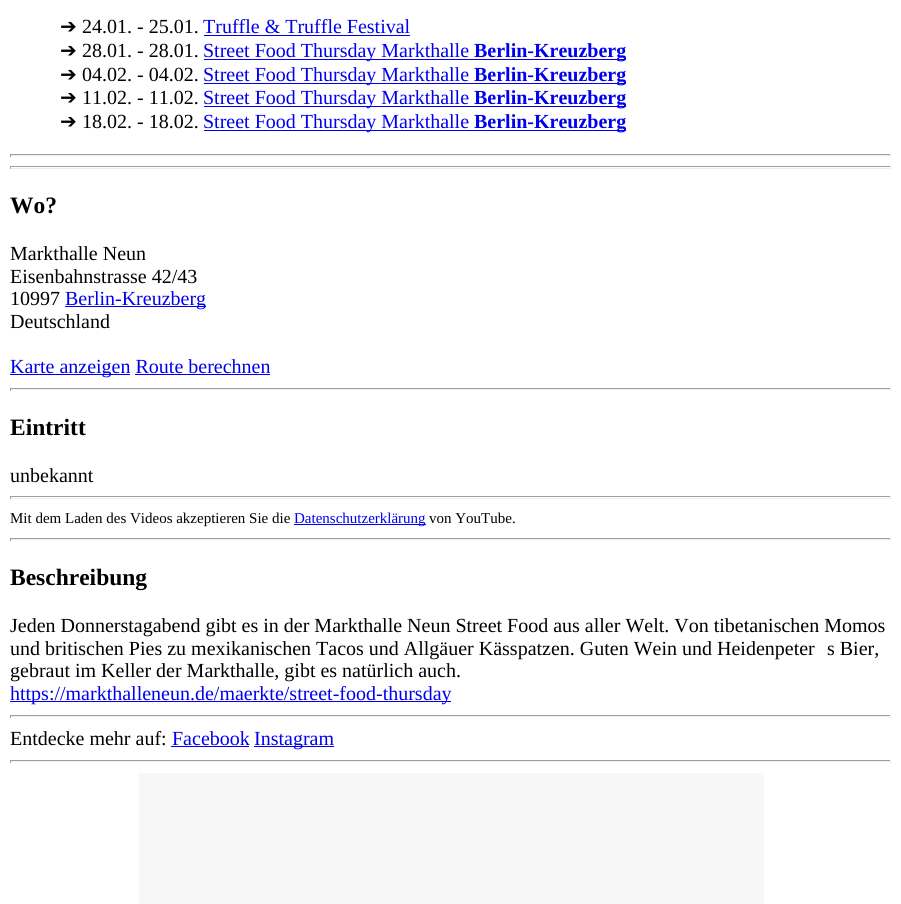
import math
import cairo

surface = cairo.ImageSurface(cairo.Format.RGB24, 901, 904)
ctx = cairo.Context(surface)
options = cairo.FontOptions()
options.set_hint_metrics(cairo.HintMetrics.OFF)
options.set_hint_style(cairo.HintStyle.NONE)
ctx.set_font_options(options)
ctx.set_miter_limit(4)


def ink(r, g, b):
    ctx.set_source_rgb(r / 255, g / 255, b / 255)


def write(x, y, s, family, size, color, bold=False, italic=False):
    ctx.select_font_face(family, cairo.FontSlant.ITALIC if italic else cairo.FontSlant.NORMAL, cairo.FontWeight.BOLD if bold else cairo.FontWeight.NORMAL)
    ctx.set_font_size(size)
    ink(*color)
    ctx.move_to(x, y)
    ctx.show_text(s)


def block(x, y, w, h, *color):
    ink(*color)
    ctx.rectangle(x, y, w, h)
    ctx.fill()


s1 = dict(family="DejaVu Sans", size=20, color=(0, 0, 0))
s2 = dict(family="Liberation Serif", size=20, color=(0, 0, 0))
s3 = dict(family="Liberation Serif", size=20, color=(0, 0, 238))
s4 = dict(family="Liberation Serif", size=20, color=(0, 0, 238), bold=True)
s5 = dict(family="Liberation Serif", size=23.5, color=(0, 0, 0), bold=True)
s6 = dict(family="Liberation Serif", size=15, color=(0, 0, 0))
s7 = dict(family="Liberation Serif", size=15, color=(0, 0, 238))

ink(255, 255, 255)
ctx.paint()
write(60, 33, "➔", **s1)
write(82, 33, "24.01. - 25.01.", **s2)
write(203, 33, "Truffle & Truffle Festival", **s3)
block(204, 35, 206, 1, 0, 0, 238)
write(60, 57, "➔", **s1)
write(82, 57, "28.01. - 28.01.", **s2)
block(204, 59, 422, 1, 0, 0, 238)
write(203, 57, "Street Food Thursday Markthalle", **s3)
write(474, 57, "Berlin-Kreuzberg", **s4)
write(60, 81, "➔", **s1)
write(82, 81, "04.02. - 04.02.", **s2)
block(204, 83, 422, 1, 0, 0, 238)
write(203, 81, "Street Food Thursday Markthalle", **s3)
write(474, 81, "Berlin-Kreuzberg", **s4)
write(60, 104, "➔", **s1)
write(82, 104, "11.02. - 11.02.", **s2)
block(204, 106, 422, 1, 0, 0, 238)
write(203, 104, "Street Food Thursday Markthalle", **s3)
write(474, 104, "Berlin-Kreuzberg", **s4)
write(60, 128, "➔", **s1)
write(82, 128, "18.02. - 18.02.", **s2)
block(204, 130, 422, 1, 0, 0, 238)
write(203, 128, "Street Food Thursday Markthalle", **s3)
write(474, 128, "Berlin-Kreuzberg", **s4)
block(10, 154, 881, 1, 159, 159, 159)
block(890, 154, 1, 3, 238, 238, 238)
block(10, 155, 881, 1, 238, 238, 238)
block(10, 154, 1, 3, 159, 159, 159)
block(10, 166, 881, 1, 159, 159, 159)
block(890, 166, 1, 3, 238, 238, 238)
block(10, 168, 881, 1, 238, 238, 238)
block(10, 166, 1, 3, 159, 159, 159)
write(10, 213, "Wo?", **s5)
write(10, 260, "Markthalle Neun", **s2)
write(10, 283, "Eisenbahnstrasse 42/43", **s2)
write(10, 305, "10997", **s2)
block(65, 306, 141, 1, 0, 0, 238)
write(65, 305, "Berlin-Kreuzberg", **s3)
write(10, 328, "Deutschland", **s2)
block(10, 374, 120, 1, 0, 0, 238)
write(10, 373, "Karte anzeigen Route berechnen", **s3)
block(135, 374, 135, 1, 0, 0, 238)
block(10, 388, 881, 1, 159, 159, 159)
block(890, 388, 1, 3, 238, 238, 238)
block(10, 389, 881, 1, 238, 238, 238)
block(10, 388, 1, 3, 159, 159, 159)
write(10, 435, "Eintritt", **s5)
write(10, 482, "unbekannt", **s2)
block(10, 496, 881, 1, 159, 159, 159)
block(890, 496, 1, 3, 238, 238, 238)
block(10, 498, 881, 1, 238, 238, 238)
block(10, 496, 1, 3, 159, 159, 159)
write(10, 523, "Mit dem Laden des Videos akzeptieren Sie die", **s6)
block(294, 524, 132, 1, 0, 0, 238)
write(294, 523, "Datenschutzerklärung", **s7)
write(429, 523, "von YouTube.", **s6)
block(10, 538, 881, 1, 159, 159, 159)
block(890, 538, 1, 3, 238, 238, 238)
block(10, 539, 881, 1, 238, 238, 238)
block(10, 538, 1, 3, 159, 159, 159)
write(10, 585, "Beschreibung", **s5)
write(10, 632, "Jeden Donnerstagabend gibt es in der Markthalle Neun Street Food aus aller Welt. Von tibetanischen Momos", **s2)
write(10, 655, "und britischen Pies zu mexikanischen Tacos und Allgäuer Kässpatzen. Guten Wein und Heidenpeter", **s2)
write(827, 655, "s Bier,", **s2)
write(10, 677, "gebraut im Keller der Markthalle, gibt es natürlich auch.", **s2)
block(10, 701, 441, 1, 0, 0, 238)
write(10, 700, "https://markthalleneun.de/maerkte/street-food-thursday", **s3)
block(10, 715, 881, 1, 159, 159, 159)
block(890, 715, 1, 3, 238, 238, 238)
block(10, 716, 881, 1, 238, 238, 238)
block(10, 715, 1, 3, 159, 159, 159)
write(10, 745, "Entdecke mehr auf:", **s2)
write(172, 745, "Facebook", **s3)
block(171, 746, 78, 1, 0, 0, 238)
block(254, 746, 80, 1, 0, 0, 238)
write(254, 745, "Instagram", **s3)
block(10, 760, 881, 1, 159, 159, 159)
block(890, 760, 1, 3, 238, 238, 238)
block(10, 761, 881, 1, 238, 238, 238)
block(10, 760, 1, 3, 159, 159, 159)
block(139, 773, 625, 131, 247, 247, 247)
surface.write_to_png("screenshot.png")
